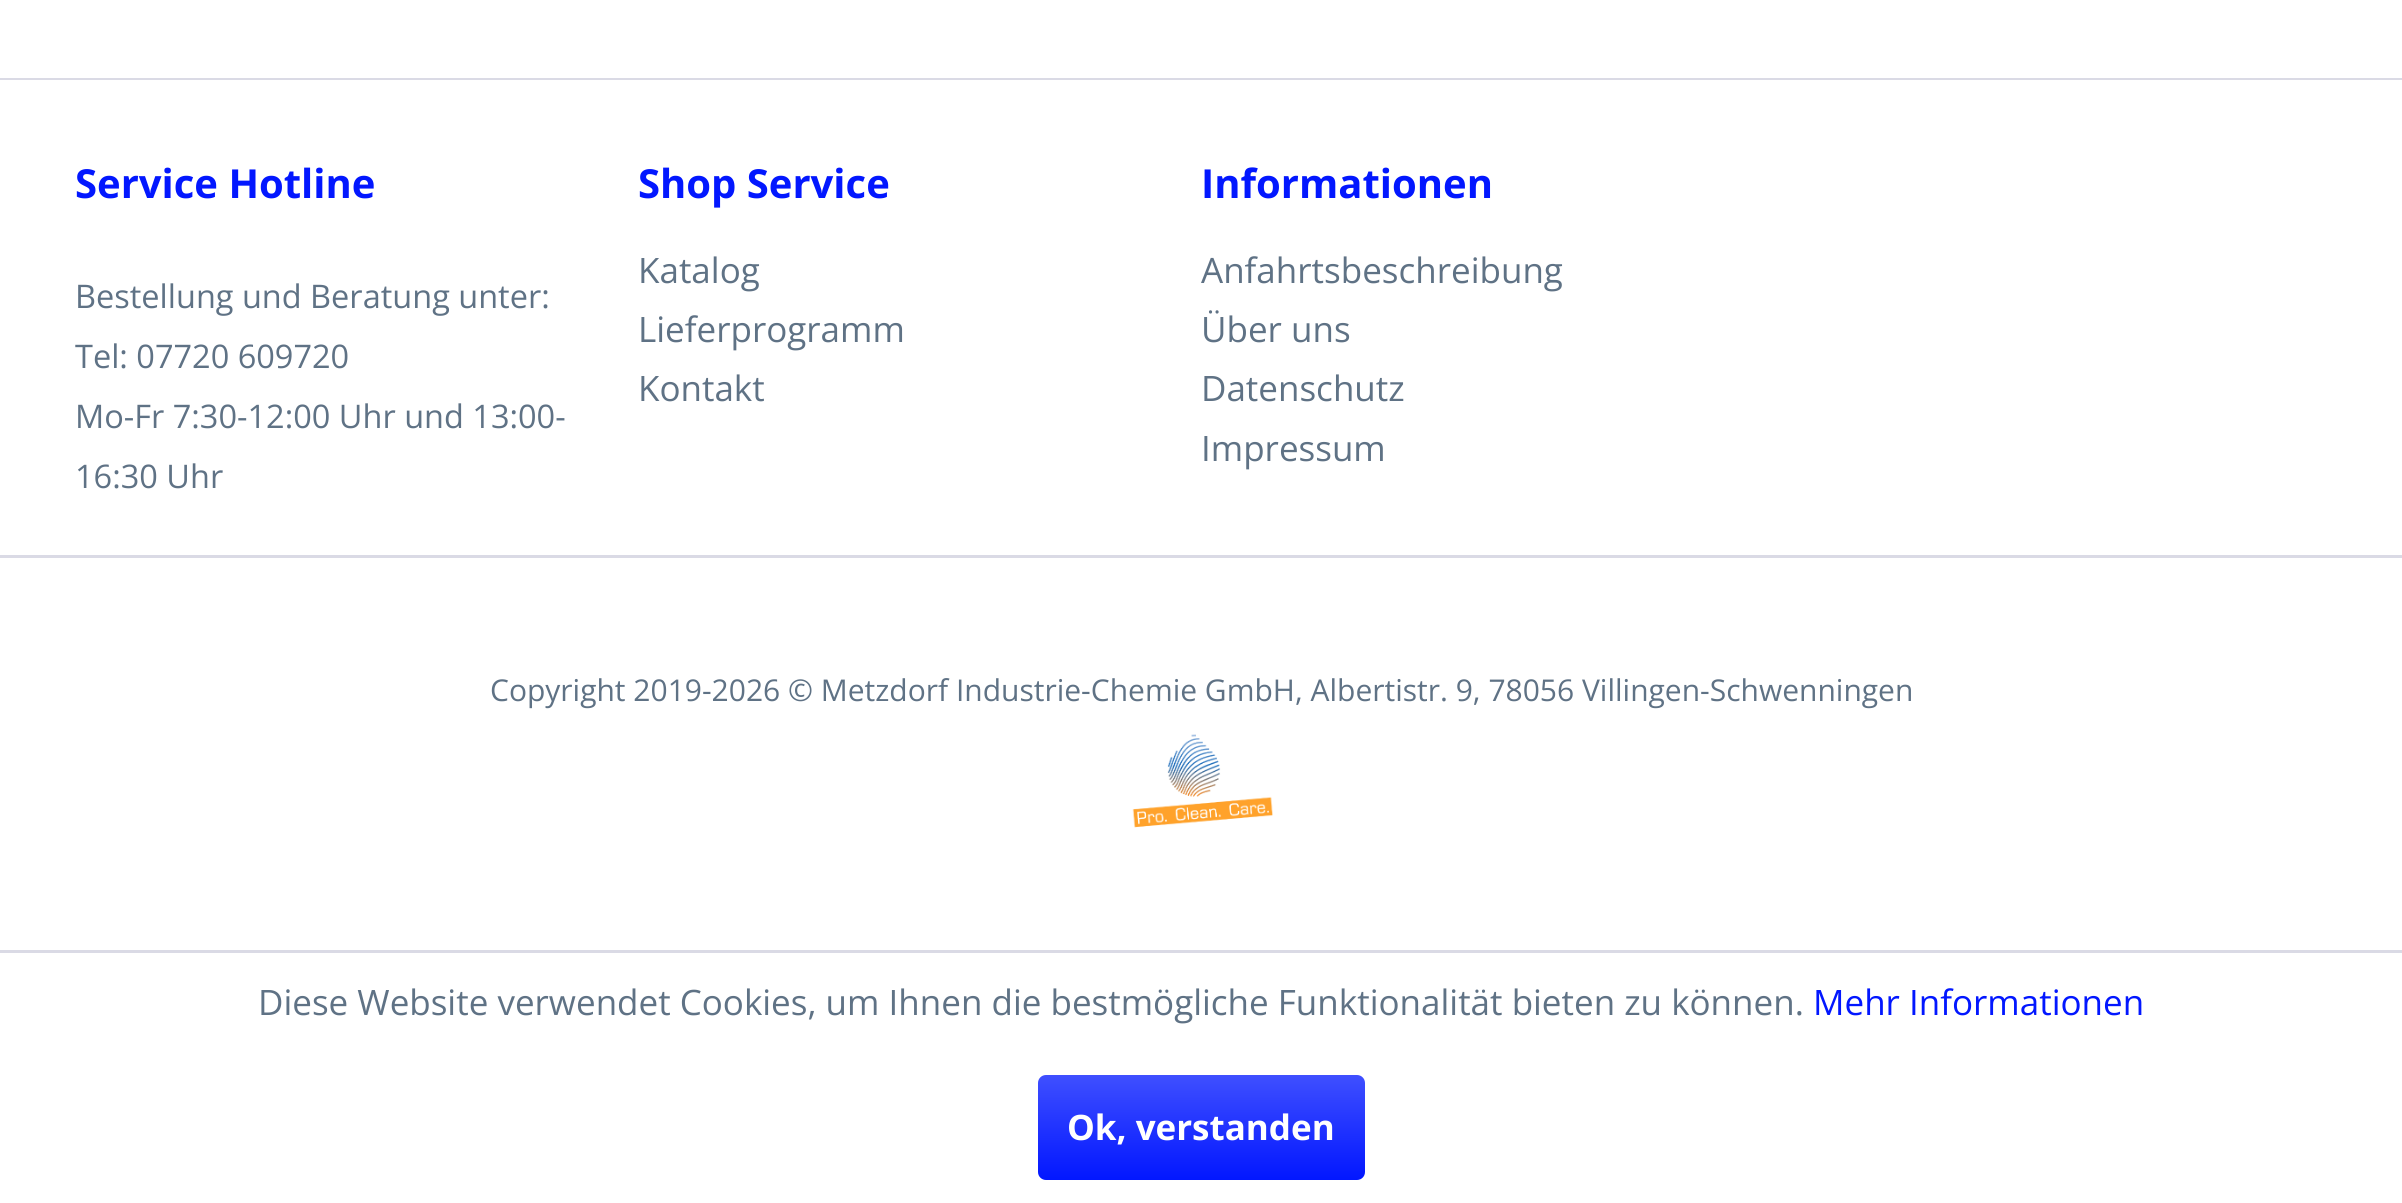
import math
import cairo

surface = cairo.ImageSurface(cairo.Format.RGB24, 2402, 1203)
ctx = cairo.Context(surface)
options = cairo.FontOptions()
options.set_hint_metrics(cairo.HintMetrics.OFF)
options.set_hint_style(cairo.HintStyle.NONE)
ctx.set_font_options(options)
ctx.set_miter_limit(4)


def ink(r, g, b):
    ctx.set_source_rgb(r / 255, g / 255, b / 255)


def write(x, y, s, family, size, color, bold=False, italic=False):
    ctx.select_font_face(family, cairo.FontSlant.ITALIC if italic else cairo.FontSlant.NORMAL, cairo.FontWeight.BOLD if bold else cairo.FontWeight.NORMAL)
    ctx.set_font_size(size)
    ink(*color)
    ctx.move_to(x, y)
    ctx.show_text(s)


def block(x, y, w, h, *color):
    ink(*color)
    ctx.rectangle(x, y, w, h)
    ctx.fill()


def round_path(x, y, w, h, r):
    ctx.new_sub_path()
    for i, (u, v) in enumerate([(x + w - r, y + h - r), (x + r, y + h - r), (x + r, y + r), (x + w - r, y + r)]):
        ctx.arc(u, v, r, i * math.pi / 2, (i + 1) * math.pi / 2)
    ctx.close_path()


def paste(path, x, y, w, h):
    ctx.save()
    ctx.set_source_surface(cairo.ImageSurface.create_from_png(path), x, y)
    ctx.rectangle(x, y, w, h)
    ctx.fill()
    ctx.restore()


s1 = dict(family="Open Sans", size=40, color=(2, 23, 255), bold=True)
s2 = dict(family="Open Sans", size=32.5, color=(95, 114, 133))
s3 = dict(family="Open Sans", size=35, color=(95, 114, 133))
s4 = dict(family="Open Sans", size=30, color=(95, 114, 133))
s5 = dict(family="Open Sans", size=35, color=(2, 23, 255))
s6 = dict(family="Open Sans", size=35, color=(255, 255, 255), bold=True)

ink(255, 255, 255)
ctx.paint()
block(0, 78, 2402, 2, 218, 218, 229)
block(0, 555, 2402, 3, 218, 218, 229)
write(75, 198, "Service Hotline", **s1)
write(75, 308, "Bestellung und Beratung unter:", **s2)
write(75, 368, "Tel: 07720 609720", **s2)
write(75, 428, "Mo-Fr 7:30-12:00 Uhr und 13:00-", **s2)
write(75, 488, "16:30 Uhr", **s2)
write(638, 198, "Shop Service", **s1)
write(638, 283, "Katalog", **s3)
write(638, 342, "Lieferprogramm", **s3)
write(638, 401, "Kontakt", **s3)
write(1201, 198, "Informationen", **s1)
write(1201, 283, "Anfahrtsbeschreibung", **s3)
write(1201, 342, "Über uns", **s3)
write(1201, 401, "Datenschutz", **s3)
write(1201, 461, "Impressum", **s3)
write(490, 701, "Copyright 2019-2026 © Metzdorf Industrie-Chemie GmbH, Albertistr. 9, 78056 Villingen-Schwenningen", **s4)
paste("pic1.png", 1132, 734, 141, 94)
block(0, 950, 2402, 3, 218, 218, 229)
write(258, 1015, "Diese Website verwendet Cookies, um Ihnen die bestmögliche Funktionalität bieten zu können.", **s3)
write(1813, 1015, "Mehr Informationen", **s5)
gradient = cairo.LinearGradient(1201, 1075, 1201, 1180)
gradient.add_color_stop_rgba(0, 0.247, 0.31, 1, 1)
gradient.add_color_stop_rgba(1, 0.008, 0.09, 1, 1)
ctx.set_source(gradient)
round_path(1038, 1075, 327, 105, 8)
ctx.fill()
write(1067, 1140, "Ok, verstanden", **s6)
surface.write_to_png("screenshot.png")
